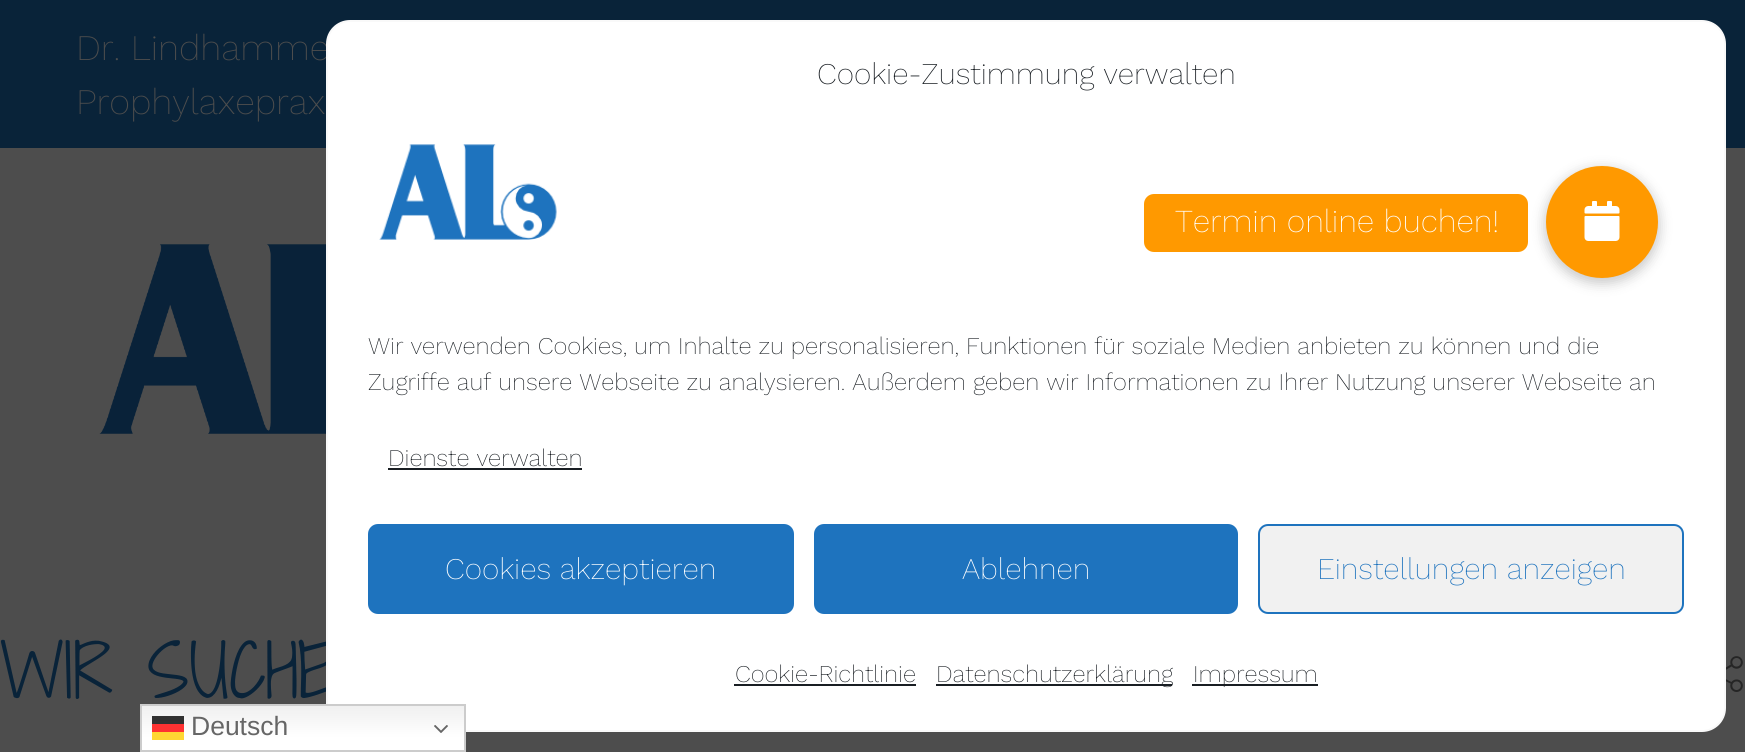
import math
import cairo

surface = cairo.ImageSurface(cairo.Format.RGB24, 1745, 752)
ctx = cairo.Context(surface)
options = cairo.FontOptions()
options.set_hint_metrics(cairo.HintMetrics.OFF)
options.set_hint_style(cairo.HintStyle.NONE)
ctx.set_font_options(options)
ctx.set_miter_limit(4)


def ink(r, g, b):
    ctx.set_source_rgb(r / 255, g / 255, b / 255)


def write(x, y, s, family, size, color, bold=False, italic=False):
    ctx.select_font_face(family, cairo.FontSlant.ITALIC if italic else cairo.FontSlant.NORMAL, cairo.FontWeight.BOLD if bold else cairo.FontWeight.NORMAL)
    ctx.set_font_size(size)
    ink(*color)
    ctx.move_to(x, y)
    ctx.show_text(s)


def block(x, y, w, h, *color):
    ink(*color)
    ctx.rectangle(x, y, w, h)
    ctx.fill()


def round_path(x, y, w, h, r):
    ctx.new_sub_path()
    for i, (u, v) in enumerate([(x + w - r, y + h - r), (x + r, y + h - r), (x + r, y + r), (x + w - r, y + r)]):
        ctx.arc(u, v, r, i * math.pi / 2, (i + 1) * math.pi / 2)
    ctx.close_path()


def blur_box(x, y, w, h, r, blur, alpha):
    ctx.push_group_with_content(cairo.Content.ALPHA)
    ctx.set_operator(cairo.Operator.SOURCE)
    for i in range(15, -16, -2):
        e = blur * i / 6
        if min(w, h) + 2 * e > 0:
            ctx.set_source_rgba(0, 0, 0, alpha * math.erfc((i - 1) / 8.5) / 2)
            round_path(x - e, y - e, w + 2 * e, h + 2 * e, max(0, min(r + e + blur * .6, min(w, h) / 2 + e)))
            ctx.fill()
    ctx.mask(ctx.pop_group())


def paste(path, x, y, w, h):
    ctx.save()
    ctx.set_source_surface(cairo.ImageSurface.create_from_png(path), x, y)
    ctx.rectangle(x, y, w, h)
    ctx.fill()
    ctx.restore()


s1 = dict(family="Work Sans ExtraLight", size=36, color=(77, 77, 77))
s2 = dict(family="Shadows Into Light Two Light", size=70, color=(9, 35, 57))
s3 = dict(family="Work Sans ExtraLight", size=30, color=(25, 30, 35))
s4 = dict(family="Work Sans ExtraLight", size=24, color=(25, 30, 35))
s5 = dict(family="Work Sans ExtraLight", size=30, color=(255, 255, 255))
s6 = dict(family="Work Sans ExtraLight", size=30, color=(30, 115, 190))
s7 = dict(family="Work Sans ExtraLight", size=32, color=(255, 255, 255))
s8 = dict(family="Liberation Sans", size=26.5, color=(102, 102, 102))

ink(77, 77, 77)
ctx.paint()
block(0, 0, 1745, 148, 9, 35, 57)
write(76, 60, "Dr. Lindhamme", **s1)
write(76, 114, "Prophylaxeprax", **s1)
paste("pic1.png", 99, 244, 227, 190)
write(0, 698, "WIR SUCHE", **s2)
paste("pic2.png", 1726, 656, 17, 36)
ink(255, 255, 255)
round_path(327, 21, 1398, 710, 23)
ctx.fill_preserve()
ink(249, 249, 249)
ctx.stroke()
write(817, 84, "Cookie-Zustimmung verwalten", **s3)
paste("pic3.png", 379, 144, 178, 96)
write(368, 354, "Wir verwenden Cookies, um Inhalte zu personalisieren, Funktionen für soziale Medien anbieten zu können und die", **s4)
write(368, 390, "Zugriffe auf unsere Webseite zu analysieren. Außerdem geben wir Informationen zu Ihrer Nutzung unserer Webseite an", **s4)
write(388, 466, "Dienste verwalten", **s4)
block(388, 468, 194, 2, 25, 30, 35)
ink(30, 115, 190)
round_path(369, 525, 424, 88, 9)
ctx.fill_preserve()
ctx.stroke()
write(445, 579, "Cookies akzeptieren", **s5)
ink(30, 115, 190)
round_path(815, 525, 422, 88, 9)
ctx.fill_preserve()
ctx.stroke()
write(962, 579, "Ablehnen", **s5)
ink(241, 241, 241)
round_path(1259, 525, 424, 88, 9)
ctx.fill_preserve()
ink(30, 115, 190)
ctx.stroke()
write(1317, 579, "Einstellungen anzeigen", **s6)
write(735, 682, "Cookie-Richtlinie", **s4)
block(734, 684, 182, 2, 25, 30, 35)
block(936, 684, 236, 2, 25, 30, 35)
write(936, 682, "Datenschutzerklärung", **s4)
block(1192, 684, 126, 2, 25, 30, 35)
write(1193, 682, "Impressum", **s4)
ink(0, 0, 0)
blur_box(1544, 168, 116, 116, 58, 6, 0.2)
ink(255, 153, 0)
ctx.arc(1602, 222, 56, 0, 2 * math.pi)
ctx.fill()
round_path(1144, 194, 384, 58, 10)
ctx.fill()
write(1175, 232, "Termin online buchen!", **s7)
paste("pic4.png", 1584, 201, 36, 40)
gradient = cairo.LinearGradient(303, 704, 303, 752)
gradient.add_color_stop_rgba(0, 0.937, 0.937, 0.937, 1)
gradient.add_color_stop_rgba(0.7, 1, 1, 1, 1)
ctx.set_source(gradient)
ctx.rectangle(142, 706, 322, 44)
ctx.fill()
gradient = cairo.LinearGradient(303, 704, 303, 752)
gradient.add_color_stop_rgba(0, 0.988, 0.188, 0.188, 1)
gradient.add_color_stop_rgba(0.7, 1, 0.2, 0.2, 1)
ctx.set_source(gradient)
ctx.rectangle(152, 724, 32, 8)
ctx.fill()
gradient = cairo.LinearGradient(303, 704, 303, 752)
gradient.add_color_stop_rgba(0, 0.188, 0.188, 0.188, 1)
gradient.add_color_stop_rgba(0.7, 0.2, 0.2, 0.2, 1)
ctx.set_source(gradient)
ctx.rectangle(152, 716, 32, 8)
ctx.fill()
ctx.rectangle(141, 705, 324, 46)
ink(204, 204, 204)
ctx.stroke()
write(191, 735, "Deutsch", **s8)
paste("pic5.png", 434, 725, 14, 8)
block(152, 732, 32, 8, 255, 214, 51)
surface.write_to_png("screenshot.png")
